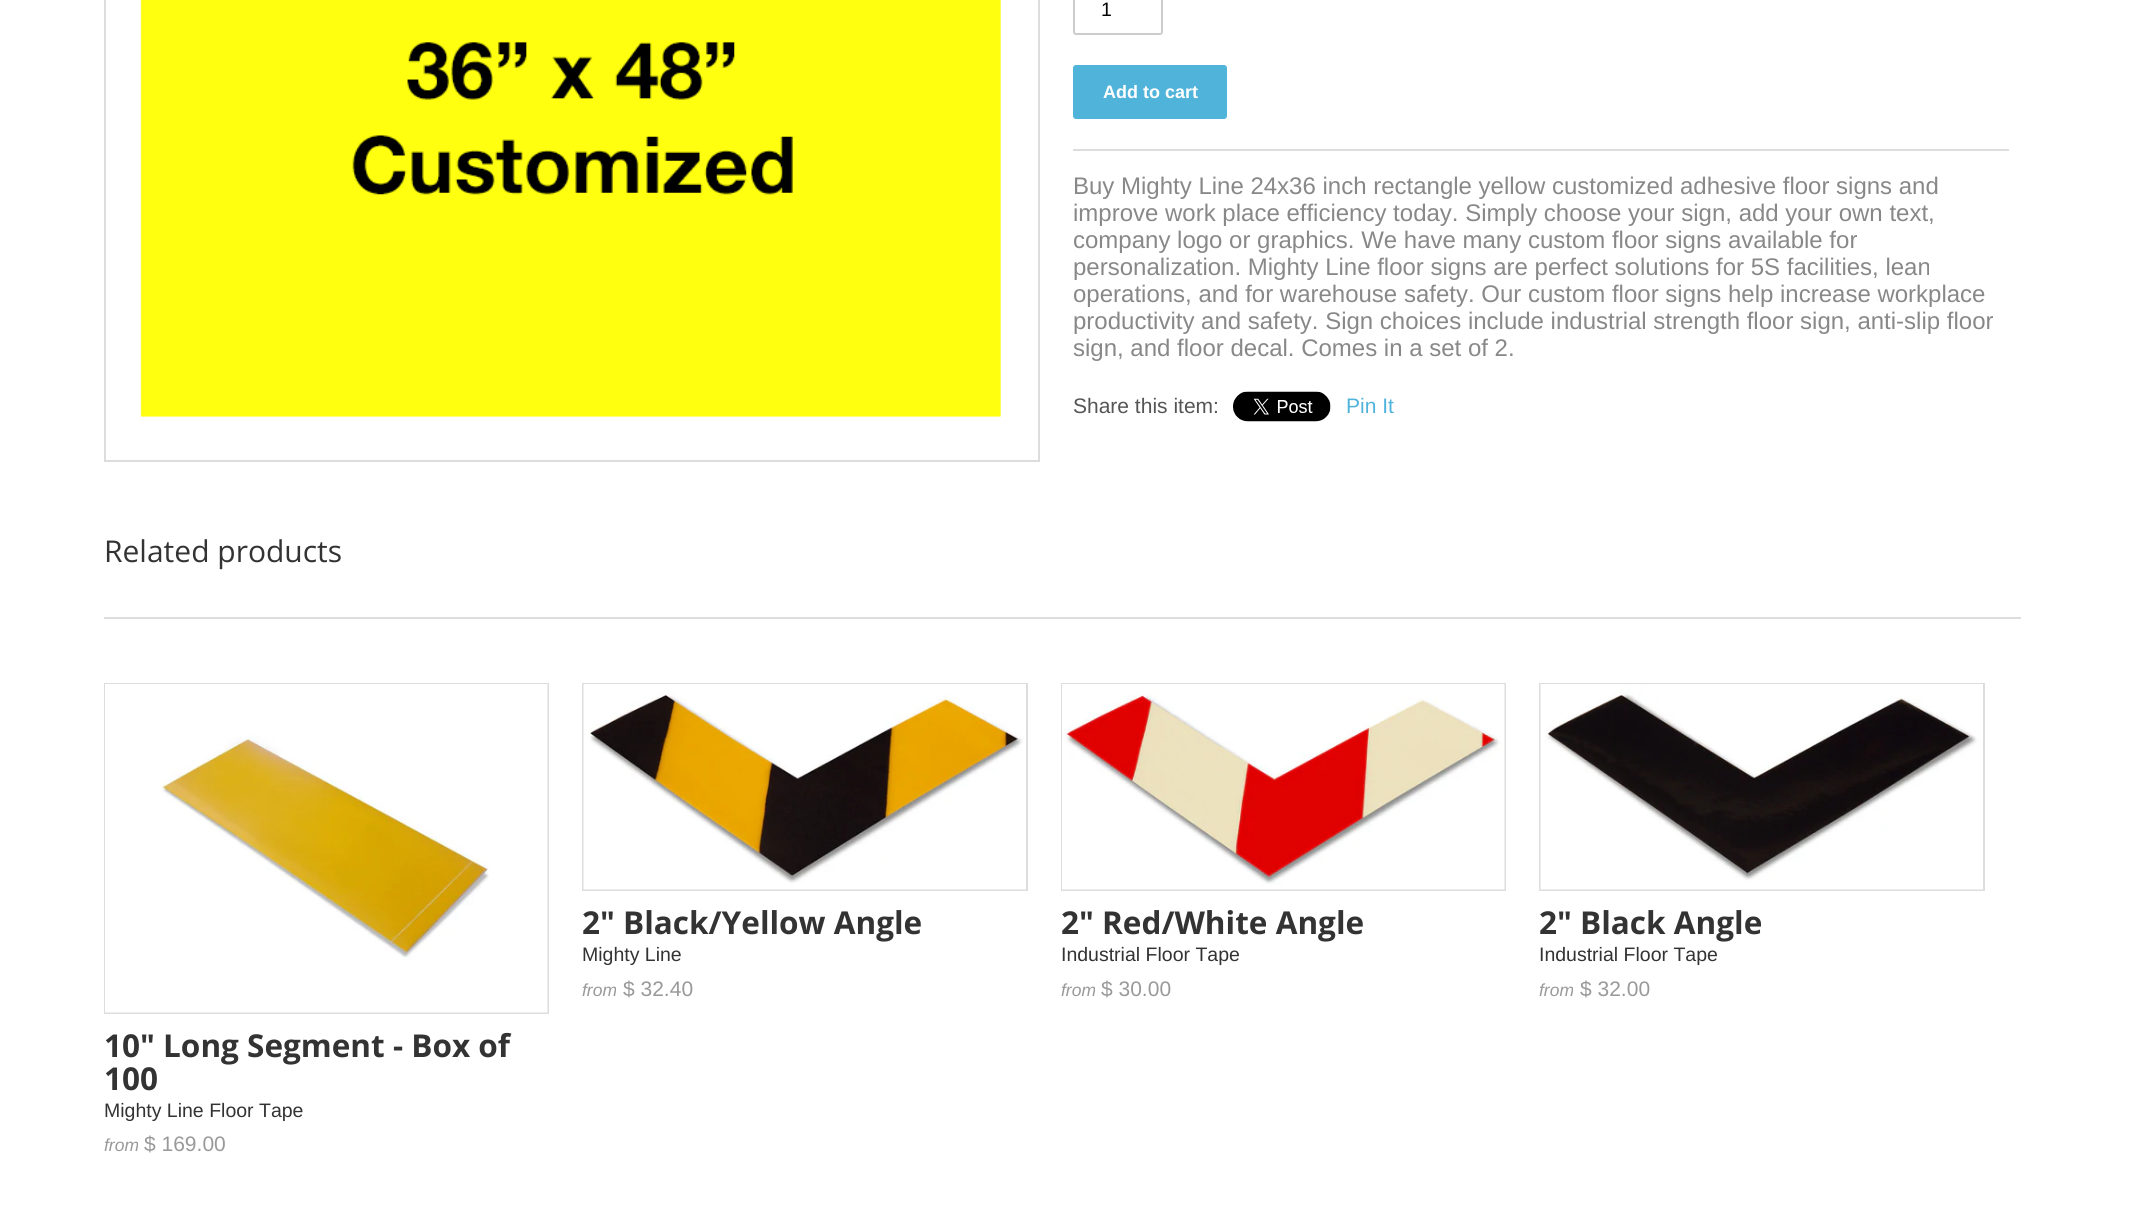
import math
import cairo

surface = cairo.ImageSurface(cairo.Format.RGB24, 2135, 1212)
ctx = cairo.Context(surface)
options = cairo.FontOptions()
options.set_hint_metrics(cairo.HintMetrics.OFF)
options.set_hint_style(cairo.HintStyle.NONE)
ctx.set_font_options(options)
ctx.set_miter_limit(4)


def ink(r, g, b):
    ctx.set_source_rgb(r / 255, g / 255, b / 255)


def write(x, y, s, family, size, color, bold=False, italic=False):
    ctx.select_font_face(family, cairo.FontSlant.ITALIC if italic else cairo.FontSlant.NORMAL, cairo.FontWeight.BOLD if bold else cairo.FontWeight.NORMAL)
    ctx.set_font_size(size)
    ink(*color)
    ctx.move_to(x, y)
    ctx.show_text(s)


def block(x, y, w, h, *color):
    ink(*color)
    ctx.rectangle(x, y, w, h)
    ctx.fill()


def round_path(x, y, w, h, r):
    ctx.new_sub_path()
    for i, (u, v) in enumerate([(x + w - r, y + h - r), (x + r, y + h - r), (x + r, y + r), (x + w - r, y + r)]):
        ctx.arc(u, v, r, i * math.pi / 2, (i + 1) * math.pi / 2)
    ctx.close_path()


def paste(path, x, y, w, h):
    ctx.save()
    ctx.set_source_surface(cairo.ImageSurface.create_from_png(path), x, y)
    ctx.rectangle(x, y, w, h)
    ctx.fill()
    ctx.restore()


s1 = dict(family="Liberation Sans", size=19.5, color=(0, 0, 0))
s2 = dict(family="Liberation Sans", size=18, color=(255, 255, 255), bold=True)
s3 = dict(family="Liberation Sans", size=24, color=(136, 136, 136))
s4 = dict(family="Liberation Sans", size=21, color=(85, 85, 85))
s5 = dict(family="Liberation Sans", size=21, color=(80, 179, 218))
s6 = dict(family="Open Sans", size=30, color=(51, 51, 51))
s7 = dict(family="Open Sans", size=31.5, color=(51, 51, 51), bold=True)
s8 = dict(family="Liberation Sans", size=19.5, color=(51, 51, 51))
s9 = dict(family="Liberation Sans", size=17.5, color=(153, 153, 153), italic=True)
s10 = dict(family="Liberation Sans", size=21, color=(153, 153, 153))

ink(255, 255, 255)
ctx.paint()
ctx.rectangle(105, -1, 934, 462)
ink(221, 221, 221)
ctx.stroke()
paste("pic1.png", 140, 0, 861, 417)
block(1073, 149, 936, 2, 221, 221, 221)
round_path(1074, -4, 88, 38, 2)
ink(204, 204, 204)
ctx.stroke()
write(1101, 16, "1", **s1)
ink(80, 179, 218)
round_path(1073, 65, 154, 54, 3)
ctx.fill()
write(1103, 98, "Add to cart", **s2)
write(1073, 194, "Buy Mighty Line 24x36 inch rectangle yellow customized adhesive floor signs and", **s3)
write(1073, 221, "improve work place efficiency today. Simply choose your sign, add your own text,", **s3)
write(1073, 248, "company logo or graphics. We have many custom floor signs available for", **s3)
write(1073, 275, "personalization. Mighty Line floor signs are perfect solutions for 5S facilities, lean", **s3)
write(1073, 302, "operations, and for warehouse safety. Our custom floor signs help increase workplace", **s3)
write(1073, 329, "productivity and safety. Sign choices include industrial strength floor sign, anti-slip floor", **s3)
write(1073, 356, "sign, and floor decal. Comes in a set of 2.", **s3)
write(1073, 413, "Share this item:", **s4)
paste("pic2.png", 1233, 391, 98, 31)
write(1346, 413, "Pin It", **s5)
block(104, 617, 1917, 2, 221, 221, 221)
write(104, 562, "Related products", **s6)
ctx.rectangle(583, 684, 444, 206)
ink(221, 221, 221)
ctx.stroke()
paste("pic3.png", 583, 684, 443, 206)
write(582, 934, "2\" Black/Yellow Angle", **s7)
write(582, 961, "Mighty Line", **s8)
write(582, 996, "from", **s9)
write(623, 996, "$ 32.40", **s10)
ctx.rectangle(1062, 684, 443, 206)
ink(221, 221, 221)
ctx.stroke()
paste("pic4.png", 1062, 684, 443, 206)
write(1061, 934, "2\" Red/White Angle", **s7)
write(1061, 961, "Industrial Floor Tape", **s8)
write(1061, 996, "from", **s9)
write(1101, 996, "$ 30.00", **s10)
ctx.rectangle(1540, 684, 444, 206)
ink(221, 221, 221)
ctx.stroke()
paste("pic5.png", 1540, 684, 443, 206)
write(1539, 934, "2\" Black Angle", **s7)
write(1539, 961, "Industrial Floor Tape", **s8)
write(1539, 996, "from", **s9)
write(1580, 996, "$ 32.00", **s10)
ctx.rectangle(105, 684, 443, 329)
ink(221, 221, 221)
ctx.stroke()
paste("pic6.png", 105, 684, 443, 329)
write(104, 1057, "10\" Long Segment - Box of", **s7)
write(104, 1090, "100", **s7)
write(104, 1117, "Mighty Line Floor Tape", **s8)
write(104, 1151, "from", **s9)
write(144, 1151, "$ 169.00", **s10)
surface.write_to_png("screenshot.png")
